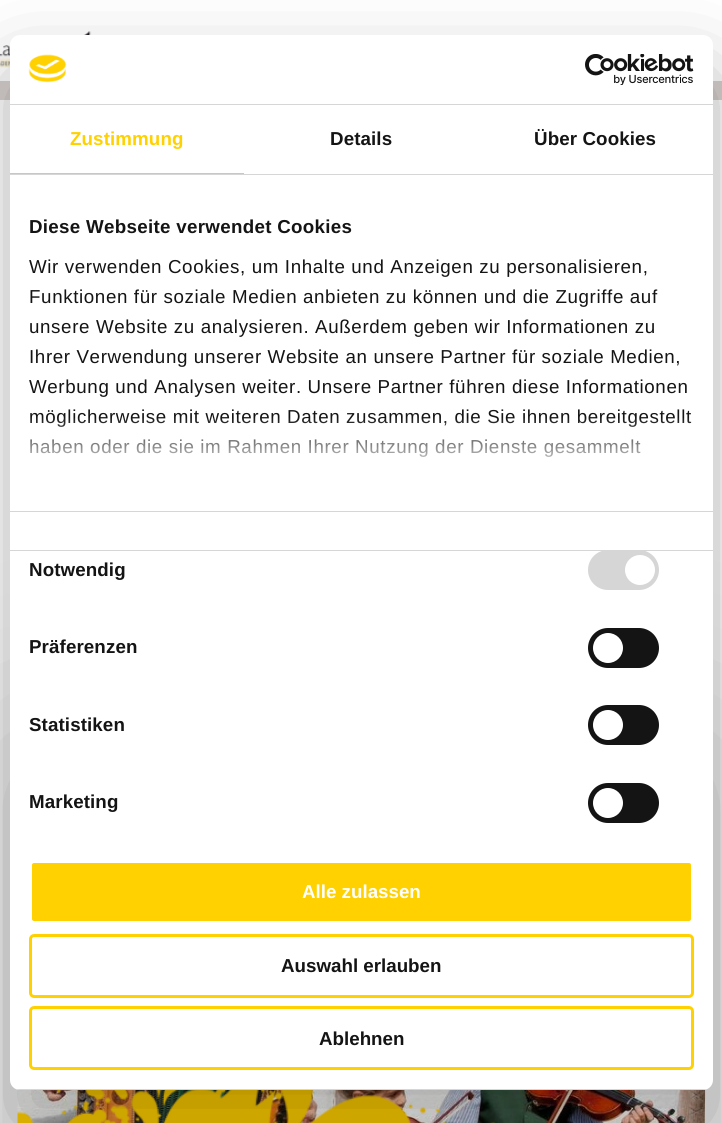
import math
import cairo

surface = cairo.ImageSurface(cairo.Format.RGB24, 722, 1123)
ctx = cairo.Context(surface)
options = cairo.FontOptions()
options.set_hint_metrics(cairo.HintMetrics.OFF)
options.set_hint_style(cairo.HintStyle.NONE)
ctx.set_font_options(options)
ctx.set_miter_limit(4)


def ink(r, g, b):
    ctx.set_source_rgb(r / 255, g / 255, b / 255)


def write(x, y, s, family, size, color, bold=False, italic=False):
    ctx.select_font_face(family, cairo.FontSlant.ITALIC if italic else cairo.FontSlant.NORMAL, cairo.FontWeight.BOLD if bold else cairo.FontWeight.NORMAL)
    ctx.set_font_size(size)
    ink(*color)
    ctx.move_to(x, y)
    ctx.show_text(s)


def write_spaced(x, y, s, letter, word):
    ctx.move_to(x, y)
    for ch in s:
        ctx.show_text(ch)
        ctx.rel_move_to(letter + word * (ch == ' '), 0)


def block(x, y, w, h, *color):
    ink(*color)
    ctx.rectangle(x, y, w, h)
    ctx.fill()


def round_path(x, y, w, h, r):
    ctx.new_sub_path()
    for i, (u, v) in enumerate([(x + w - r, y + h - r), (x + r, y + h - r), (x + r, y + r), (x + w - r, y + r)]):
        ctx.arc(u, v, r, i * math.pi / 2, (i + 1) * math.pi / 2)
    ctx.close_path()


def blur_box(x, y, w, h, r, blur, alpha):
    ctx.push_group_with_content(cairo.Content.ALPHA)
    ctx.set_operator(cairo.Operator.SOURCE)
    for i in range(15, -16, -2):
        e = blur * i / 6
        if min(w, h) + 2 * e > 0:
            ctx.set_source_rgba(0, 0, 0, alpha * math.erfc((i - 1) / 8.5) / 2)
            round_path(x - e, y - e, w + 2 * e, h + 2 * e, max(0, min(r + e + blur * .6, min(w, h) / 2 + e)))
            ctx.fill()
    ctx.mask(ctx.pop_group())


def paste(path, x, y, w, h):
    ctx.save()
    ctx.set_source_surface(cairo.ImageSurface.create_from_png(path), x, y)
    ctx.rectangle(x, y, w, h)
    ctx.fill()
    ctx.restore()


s1 = dict(family="Liberation Sans", size=18.75, color=(255, 255, 255), bold=True)
s2 = dict(family="Liberation Sans", size=18.75, color=(20, 20, 20), bold=True)

ink(255, 255, 255)
ctx.paint()
paste("pic1.png", 0, 31, 118, 37)
block(0, 81, 722, 19, 216, 210, 207)
ink(0, 0, 0)
blur_box(18, 756, 687, 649, 0, 94, 0.2)
paste("pic2.png", 17, 1089, 688, 34)
paste("pic3.png", 17, 1090, 478, 33)
blur_box(10, 75, 703, 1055, 10, 42.5, 0.3)
ink(255, 255, 255)
round_path(10, 35, 703, 1055, 10)
ctx.fill()
block(10, 104, 703, 1, 214, 214, 214)
paste("pic4.png", 28, 54, 39, 29)
paste("pic5.png", 585, 54, 109, 31)
block(10, 174, 703, 1, 214, 214, 214)
block(10, 173, 234, 1, 255, 209, 0)
ctx.select_font_face("Liberation Sans", cairo.FontSlant.NORMAL, cairo.FontWeight.BOLD)
ctx.set_font_size(18.75)
write_spaced(70, 145, "Zustimmung", 0.1, 0)
ink(20, 20, 20)
write_spaced(330, 145, "Details", 0.1, 0)
write_spaced(534, 145, "Über Cookies", 0.1, 0)
block(10, 511, 703, 1, 214, 214, 214)
ink(20, 20, 20)
write_spaced(29, 233, "Diese Webseite verwendet Cookies", 0.3, 0)
ctx.select_font_face("Liberation Sans")
write_spaced(29, 273, "Wir verwenden Cookies, um Inhalte und Anzeigen zu personalisieren,", 0.62, 0)
write_spaced(29, 303, "Funktionen für soziale Medien anbieten zu können und die Zugriffe auf", 0.62, 0)
write_spaced(29, 333, "unsere Website zu analysieren. Außerdem geben wir Informationen zu", 0.62, 0)
write_spaced(29, 363, "Ihrer Verwendung unserer Website an unsere Partner für soziale Medien,", 0.62, 0)
write_spaced(29, 393, "Werbung und Analysen weiter. Unsere Partner führen diese Informationen", 0.62, 0)
write_spaced(29, 423, "möglicherweise mit weiteren Daten zusammen, die Sie ihnen bereitgestellt", 0.62, 0)
write_spaced(29, 453, "haben oder die sie im Rahmen Ihrer Nutzung der Dienste gesammelt", 0.62, 0)
gradient = cairo.LinearGradient(353, 511, 353, 417)
gradient.add_color_stop_rgba(0, 1, 1, 1, 1)
gradient.add_color_stop_rgba(0.5, 1, 1, 1, 0.8)
gradient.add_color_stop_rgba(1, 1, 1, 1, 0)
ctx.set_source(gradient)
ctx.rectangle(30, 418, 661, 39)
ctx.fill()
block(10, 550, 703, 1, 214, 214, 214)
ctx.select_font_face("Liberation Sans", cairo.FontSlant.NORMAL, cairo.FontWeight.BOLD)
ink(20, 20, 20)
write_spaced(29, 576, "Notwendig", 0.1, 0)
ink(214, 214, 214)
round_path(588, 550, 71, 40, 20)
ctx.fill()
ink(255, 255, 255)
ctx.arc(640, 570, 15, 0, 2 * math.pi)
ctx.fill()
ink(20, 20, 20)
write_spaced(29, 653, "Präferenzen", 0.1, 0)
round_path(588, 628, 71, 40, 20)
ctx.fill()
ink(255, 255, 255)
ctx.arc(608, 648, 15, 0, 2 * math.pi)
ctx.fill()
ink(20, 20, 20)
write_spaced(29, 731, "Statistiken", 0.1, 0)
round_path(588, 705, 71, 40, 20)
ctx.fill()
ink(255, 255, 255)
ctx.arc(608, 725, 15, 0, 2 * math.pi)
ctx.fill()
ink(20, 20, 20)
write_spaced(29, 808, "Marketing", 0.1, 0)
round_path(588, 783, 71, 40, 20)
ctx.fill()
ink(255, 255, 255)
ctx.arc(608, 803, 15, 0, 2 * math.pi)
ctx.fill()
ctx.save()
round_path(10, 35, 703, 1055, 10)
ctx.clip()
block(10, 1089, 703, 1, 214, 214, 214)
ctx.restore()
ink(255, 209, 0)
round_path(30.5, 861.5, 662, 61, 3.5)
ctx.fill_preserve()
ink(255, 255, 255)
ctx.set_line_width(3)
ctx.stroke()
write(302, 898, "Alle zulassen", **s1)
round_path(30.5, 935.5, 662, 61, 3.5)
ink(255, 209, 0)
ctx.stroke()
write(281, 972, "Auswahl erlauben", **s2)
round_path(30.5, 1007.5, 662, 61, 3.5)
ink(255, 209, 0)
ctx.stroke()
write(319, 1045, "Ablehnen", **s2)
surface.write_to_png("screenshot.png")
